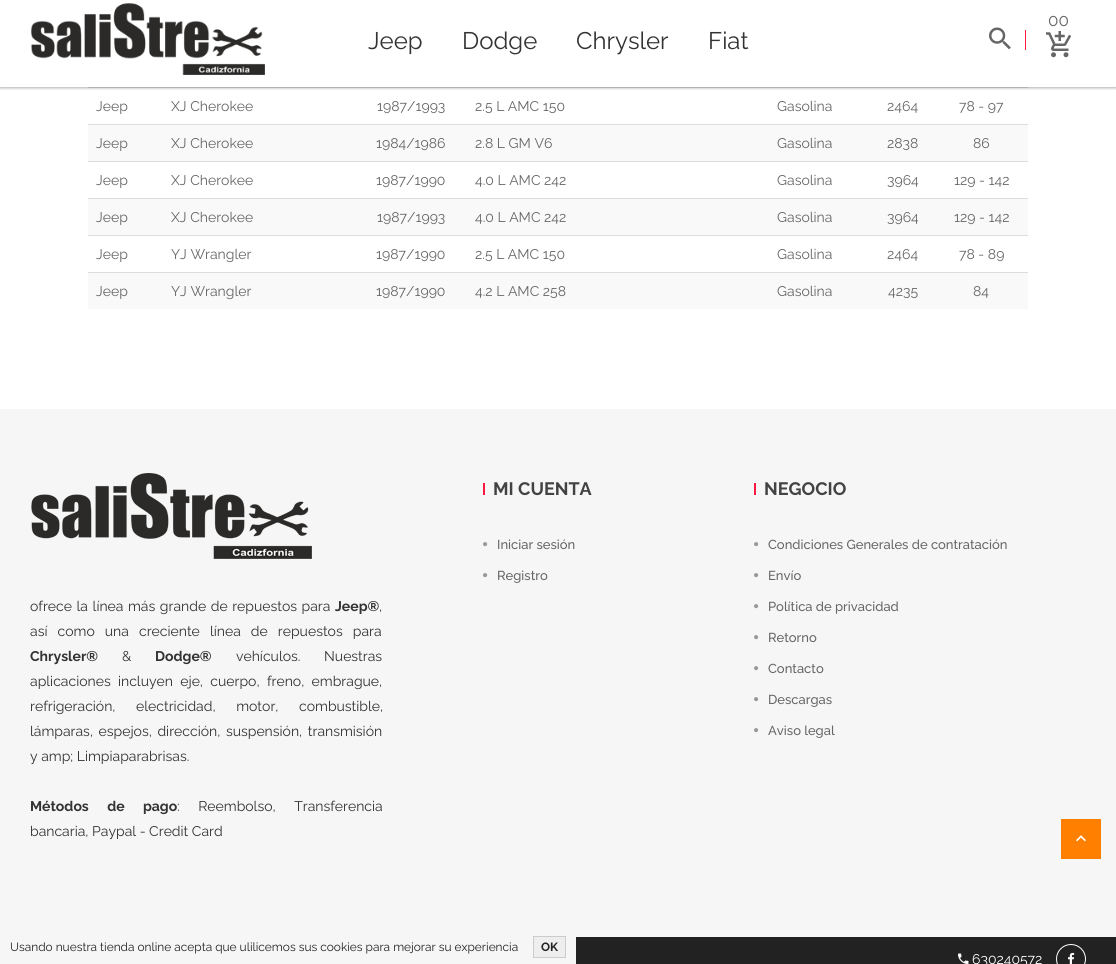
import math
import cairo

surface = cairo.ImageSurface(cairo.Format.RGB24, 1116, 964)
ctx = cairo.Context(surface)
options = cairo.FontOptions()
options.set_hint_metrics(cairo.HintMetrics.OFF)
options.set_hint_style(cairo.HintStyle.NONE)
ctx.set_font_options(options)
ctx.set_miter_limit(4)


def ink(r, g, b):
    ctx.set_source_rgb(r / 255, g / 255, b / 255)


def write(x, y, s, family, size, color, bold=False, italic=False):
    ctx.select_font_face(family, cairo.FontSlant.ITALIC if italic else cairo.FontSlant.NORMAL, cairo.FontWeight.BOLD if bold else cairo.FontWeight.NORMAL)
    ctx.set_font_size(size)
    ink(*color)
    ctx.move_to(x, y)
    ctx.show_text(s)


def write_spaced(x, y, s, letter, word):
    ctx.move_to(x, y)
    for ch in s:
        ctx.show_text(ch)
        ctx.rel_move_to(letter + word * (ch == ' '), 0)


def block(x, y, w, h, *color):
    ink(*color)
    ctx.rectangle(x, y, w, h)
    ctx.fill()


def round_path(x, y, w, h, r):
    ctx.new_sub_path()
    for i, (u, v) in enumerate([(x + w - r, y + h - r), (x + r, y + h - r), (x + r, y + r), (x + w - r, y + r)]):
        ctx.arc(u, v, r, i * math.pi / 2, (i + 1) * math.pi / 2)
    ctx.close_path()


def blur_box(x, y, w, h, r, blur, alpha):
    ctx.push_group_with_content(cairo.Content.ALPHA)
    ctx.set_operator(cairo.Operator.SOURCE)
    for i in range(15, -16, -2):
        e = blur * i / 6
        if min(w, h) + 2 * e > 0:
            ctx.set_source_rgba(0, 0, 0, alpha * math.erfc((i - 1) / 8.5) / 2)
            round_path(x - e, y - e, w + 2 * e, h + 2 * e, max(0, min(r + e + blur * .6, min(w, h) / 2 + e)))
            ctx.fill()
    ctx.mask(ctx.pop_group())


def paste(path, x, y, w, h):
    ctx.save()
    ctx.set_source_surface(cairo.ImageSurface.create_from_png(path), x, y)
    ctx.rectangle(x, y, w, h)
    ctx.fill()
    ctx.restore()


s1 = dict(family="Raleway", size=17, color=(102, 102, 102))
s2 = dict(family="Raleway", size=24, color=(51, 51, 51))
s3 = dict(family="Raleway", size=14, color=(102, 102, 102))
s4 = dict(family="Raleway", size=14, color=(51, 51, 51), bold=True)
s5 = dict(family="Raleway", size=14, color=(51, 51, 51))
s6 = dict(family="Raleway", size=18, color=(67, 67, 67), bold=True)
s7 = dict(family="Raleway Medium", size=13, color=(102, 102, 102))
s8 = dict(family="Raleway", size=14, color=(255, 255, 255))
s9 = dict(family="Raleway", size=11.9, color=(34, 34, 34))
s10 = dict(family="Raleway", size=11.9, color=(34, 34, 34), bold=True)

ink(255, 255, 255)
ctx.paint()
block(88, 87, 940, 1, 221, 221, 221)
ctx.save()
ctx.rectangle(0, 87, 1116, 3)
ctx.clip()
ink(50, 50, 50)
blur_box(0, 1, 1116, 87, 0, 1.5, 0.4)
ctx.restore()
paste("pic1.png", 30, 3, 235, 72)
write(1048, 26, "00", **s1)
paste("pic2.png", 1046, 31, 26, 27)
paste("pic3.png", 989, 27, 22, 23)
block(1025, 30, 1, 20, 255, 23, 68)
write(368, 49, "Jeep", **s2)
write(462, 49, "Dodge", **s2)
write(576, 49, "Chrysler", **s2)
write(708, 49, "Fiat", **s2)
write(96, 111, "Jeep", **s3)
write(171, 111, "XJ Cherokee", **s3)
write(377, 111, "1987/1993", **s3)
write(475, 111, "2.5 L AMC 150", **s3)
write(777, 111, "Gasolina", **s3)
write(887, 111, "2464", **s3)
write(959, 111, "78 - 97", **s3)
block(88, 125, 940, 36, 249, 249, 249)
write(96, 148, "Jeep", **s3)
write(171, 148, "XJ Cherokee", **s3)
write(376, 148, "1984/1986", **s3)
write(475, 148, "2.8 L GM V6", **s3)
write(777, 148, "Gasolina", **s3)
write(887, 148, "2838", **s3)
block(88, 124, 940, 1, 221, 221, 221)
write(973, 148, "86", **s3)
write(96, 185, "Jeep", **s3)
write(171, 185, "XJ Cherokee", **s3)
write(376, 185, "1987/1990", **s3)
write(475, 185, "4.0 L AMC 242", **s3)
write(777, 185, "Gasolina", **s3)
write(887, 185, "3964", **s3)
block(88, 161, 940, 1, 221, 221, 221)
write(954, 185, "129 - 142", **s3)
block(88, 199, 940, 36, 249, 249, 249)
write(96, 222, "Jeep", **s3)
write(171, 222, "XJ Cherokee", **s3)
write(377, 222, "1987/1993", **s3)
write(475, 222, "4.0 L AMC 242", **s3)
write(777, 222, "Gasolina", **s3)
write(887, 222, "3964", **s3)
block(88, 198, 940, 1, 221, 221, 221)
write(954, 222, "129 - 142", **s3)
write(96, 259, "Jeep", **s3)
write(171, 259, "YJ Wrangler", **s3)
write(376, 259, "1987/1990", **s3)
write(475, 259, "2.5 L AMC 150", **s3)
write(777, 259, "Gasolina", **s3)
write(887, 259, "2464", **s3)
block(88, 235, 940, 1, 221, 221, 221)
write(959, 259, "78 - 89", **s3)
block(88, 273, 940, 36, 249, 249, 249)
write(96, 296, "Jeep", **s3)
write(171, 296, "YJ Wrangler", **s3)
write(376, 296, "1987/1990", **s3)
write(475, 296, "4.2 L AMC 258", **s3)
write(777, 296, "Gasolina", **s3)
write(888, 296, "4235", **s3)
block(88, 272, 940, 1, 221, 221, 221)
write(973, 296, "84", **s3)
block(0, 409, 1116, 528, 246, 246, 246)
paste("pic4.png", 31, 473, 281, 86)
ink(51, 51, 51)
write_spaced(30, 611, "ofrece la línea más grande de repuestos para", 0, 1)
write(335, 611, "Jeep®", **s4)
write(379, 611, ",", **s5)
write_spaced(30, 636, "así como una creciente línea de repuestos para", 0, 6.5)
write(30, 661, "Chrysler®", **s4)
write(122, 661, "&", **s5)
write(155, 661, "Dodge®", **s4)
ctx.select_font_face("Raleway")
write_spaced(236, 661, "vehículos. Nuestras", 0, 20)
write_spaced(30, 686, "aplicaciones incluyen eje, cuerpo, freno, embrague,", 0, 3.75)
write_spaced(30, 711, "refrigeración, electricidad, motor, combustible,", 0, 17)
write_spaced(30, 736, "lámparas, espejos, dirección, suspensión, transmisión", 0, 2)
write(30, 761, "y amp; Limpiaparabrisas.", **s5)
ctx.select_font_face("Raleway", cairo.FontSlant.NORMAL, cairo.FontWeight.BOLD)
write_spaced(30, 811, "Métodos de pago", 0, 15)
ctx.select_font_face("Raleway")
write_spaced(177, 811, ": Reembolso, Transferencia", 0, 15)
write(30, 836, "bancaria, Paypal - Credit Card", **s5)
block(483, 483, 2, 12, 255, 23, 68)
write(493, 495, "MI CUENTA", **s6)
paste("pic5.png", 483, 542, 5, 5)
write(497, 549, "Iniciar sesión", **s7)
paste("pic5.png", 483, 573, 5, 5)
write(497, 580, "Registro", **s7)
block(754, 483, 2, 12, 255, 23, 68)
write(764, 495, "NEGOCIO", **s6)
paste("pic5.png", 754, 542, 5, 5)
write(768, 549, "Condiciones Generales de contratación", **s7)
paste("pic5.png", 754, 573, 5, 5)
write(768, 580, "Envío", **s7)
paste("pic5.png", 754, 604, 5, 5)
write(768, 611, "Política de privacidad", **s7)
paste("pic5.png", 754, 635, 5, 5)
write(768, 642, "Retorno", **s7)
paste("pic5.png", 754, 666, 5, 5)
write(768, 673, "Contacto", **s7)
paste("pic5.png", 754, 697, 5, 5)
write(768, 704, "Descargas", **s7)
paste("pic5.png", 754, 728, 5, 5)
write(768, 735, "Aviso legal", **s7)
block(576, 937, 540, 27, 34, 34, 34)
paste("pic6.png", 958, 953, 11, 11)
write(972, 964, "630240572", **s8)
ctx.new_path()
ctx.arc(1071, 959, 14.5, 0, 2 * math.pi)
ctx.set_line_width(1)
ctx.stroke()
paste("pic7.png", 1068, 952, 7, 12)
block(1061, 819, 40, 40, 255, 127, 0)
paste("pic8.png", 1076, 835, 10, 7)
block(0, 937, 576, 27, 246, 246, 246)
write(10, 951, "Usando nuestra tienda online acepta que ulilicemos sus cookies para mejorar su experiencia", **s9)
ink(238, 238, 238)
ctx.rectangle(533.5, 936.5, 32, 21)
ctx.fill_preserve()
ink(204, 204, 204)
ctx.stroke()
write(541, 951, "OK", **s10)
surface.write_to_png("screenshot.png")
